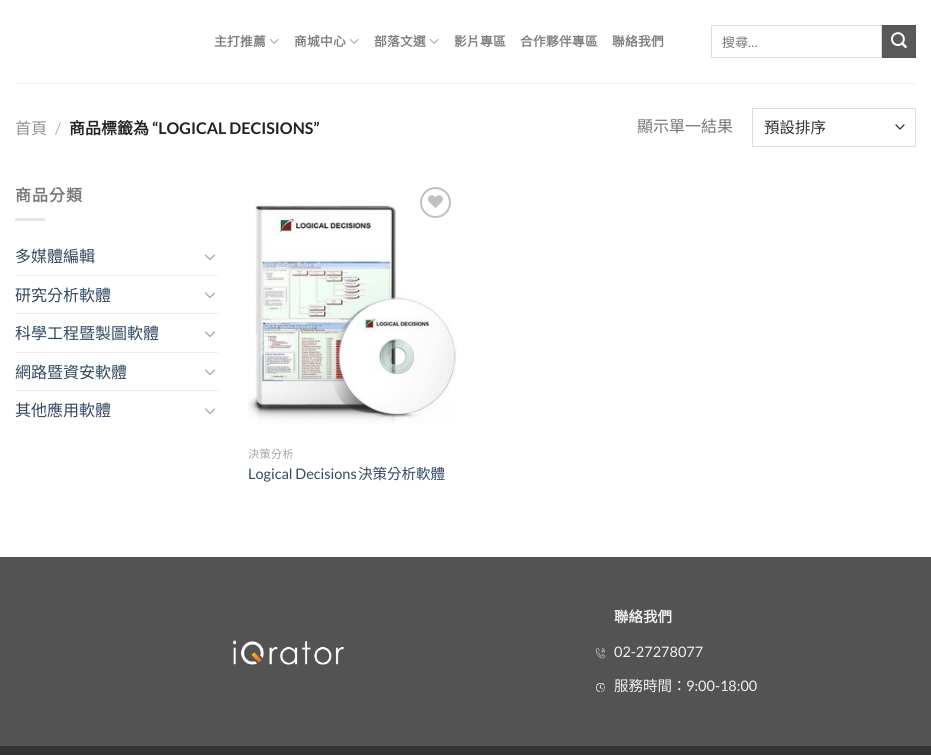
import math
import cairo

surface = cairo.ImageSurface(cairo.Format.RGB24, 931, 755)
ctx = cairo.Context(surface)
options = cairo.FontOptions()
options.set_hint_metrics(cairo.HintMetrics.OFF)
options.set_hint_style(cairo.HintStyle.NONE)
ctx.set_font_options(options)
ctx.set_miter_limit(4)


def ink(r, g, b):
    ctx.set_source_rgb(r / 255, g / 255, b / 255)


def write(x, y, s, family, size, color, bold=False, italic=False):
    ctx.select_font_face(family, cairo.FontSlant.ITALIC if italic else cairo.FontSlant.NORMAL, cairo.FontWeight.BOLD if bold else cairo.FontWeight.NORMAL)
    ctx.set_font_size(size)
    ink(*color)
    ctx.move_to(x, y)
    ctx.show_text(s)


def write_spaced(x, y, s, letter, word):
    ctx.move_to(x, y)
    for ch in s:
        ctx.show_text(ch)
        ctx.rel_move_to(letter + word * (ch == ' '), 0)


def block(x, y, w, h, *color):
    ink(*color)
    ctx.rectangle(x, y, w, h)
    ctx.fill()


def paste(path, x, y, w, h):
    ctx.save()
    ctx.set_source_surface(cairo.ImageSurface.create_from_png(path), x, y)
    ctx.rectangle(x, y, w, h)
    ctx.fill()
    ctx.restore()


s1 = dict(family="Noto Sans CJK TC", size=13, color=(119, 119, 119))
s2 = dict(family="Lato", size=13, color=(119, 119, 119))
s3 = dict(family="Noto Sans CJK TC", size=16, color=(148, 148, 148))
s4 = dict(family="Lato", size=16, color=(178, 178, 178))
s5 = dict(family="Noto Sans CJK TC", size=16, color=(34, 34, 34), bold=True)
s6 = dict(family="Lato", size=16, color=(34, 34, 34), bold=True)
s7 = dict(family="Noto Sans CJK TC", size=16, color=(119, 119, 119))
s8 = dict(family="Noto Sans CJK TC", size=15.5, color=(51, 51, 51))
s9 = dict(family="Noto Sans CJK TC", size=16, color=(51, 72, 98))
s10 = dict(family="Lato", size=14.5, color=(51, 72, 98))
s11 = dict(family="Noto Sans CJK TC", size=14.5, color=(51, 72, 98))
s12 = dict(family="Noto Sans CJK TC", size=14.5, color=(241, 241, 241), bold=True)
s13 = dict(family="Lato", size=14.5, color=(241, 241, 241))
s14 = dict(family="Noto Sans CJK TC", size=14.5, color=(241, 241, 241))

ink(255, 255, 255)
ctx.paint()
ctx.select_font_face("Noto Sans CJK TC", cairo.FontSlant.NORMAL, cairo.FontWeight.BOLD)
ctx.set_font_size(12.75)
ink(125, 125, 125)
write_spaced(214, 46, "主打推薦", 0.25, 0)
paste("pic1.png", 269, 38, 10, 6)
write_spaced(294, 46, "商城中心", 0.25, 0)
paste("pic1.png", 349, 38, 10, 6)
write_spaced(374, 46, "部落文選", 0.25, 0)
paste("pic1.png", 429, 38, 10, 6)
write_spaced(454, 46, "影片專區", 0.25, 0)
write_spaced(520, 46, "合作夥伴專區", 0.25, 0)
write_spaced(612, 46, "聯絡我們", 0.25, 0)
ctx.rectangle(711.5, 25.5, 170, 32)
ink(221, 221, 221)
ctx.set_line_width(1)
ctx.stroke()
write(722, 47, "搜尋", **s1)
write(748, 47, "…", **s2)
ink(89, 89, 89)
ctx.rectangle(882.5, 25.5, 33, 32)
ctx.fill_preserve()
ink(85, 85, 85)
ctx.stroke()
paste("pic2.png", 891, 32, 16, 16)
block(15, 83, 901, 1, 241, 241, 241)
write(15, 134, "首頁", **s3)
write(55, 134, "/", **s4)
write(69, 134, "商品標籤為", **s5)
write(152, 134, "“LOGICAL DECISIONS”", **s6)
write(637, 132, "顯示單一結果", **s7)
ctx.new_path()
ctx.move_to(896, 125)
ctx.line_to(900, 129)
ctx.line_to(904, 125)
ink(51, 51, 51)
ctx.set_line_width(1.3)
ctx.set_line_cap(cairo.LineCap.ROUND)
ctx.set_line_join(cairo.LineJoin.ROUND)
ctx.stroke()
ctx.rectangle(752.5, 108.5, 163, 38)
ink(221, 221, 221)
ctx.set_line_width(1)
ctx.set_line_cap(cairo.LineCap.BUTT)
ctx.set_line_join(cairo.LineJoin.MITER)
ctx.stroke()
write(764, 133, "預設排序", **s8)
ctx.select_font_face("Noto Sans CJK TC", cairo.FontSlant.NORMAL, cairo.FontWeight.BOLD)
ctx.set_font_size(16)
ink(119, 119, 119)
write_spaced(15, 201, "商品分類", 1, 0)
block(15, 218, 30, 3, 230, 230, 230)
write(15, 262, "多媒體編輯", **s9)
paste("pic3.png", 204, 254, 12, 7)
block(15, 275, 203, 1, 236, 236, 236)
write(15, 301, "研究分析軟體", **s9)
paste("pic3.png", 204, 292, 12, 7)
block(15, 313, 203, 1, 236, 236, 236)
write(15, 339, "科學工程暨製圖軟體", **s9)
paste("pic3.png", 204, 331, 12, 7)
block(15, 352, 203, 1, 236, 236, 236)
write(15, 378, "網路暨資安軟體", **s9)
paste("pic3.png", 204, 369, 12, 7)
block(15, 390, 203, 1, 236, 236, 236)
write(15, 416, "其他應用軟體", **s9)
paste("pic3.png", 204, 408, 12, 7)
paste("pic5.png", 248, 203, 209, 221)
ctx.arc(435.5, 202.5, 14.5, 0, 2 * math.pi)
ink(192, 192, 192)
ctx.set_line_width(2)
ctx.stroke()
paste("pic4.png", 428, 195, 15, 13)
ctx.set_font_size(11)
ink(160, 160, 160)
write_spaced(248, 458, "決策分析", 0.5, 0)
write(248, 479, "Logical Decisions", **s10)
write(358, 479, "決策分析軟體", **s11)
block(0, 557, 931, 189, 83, 83, 83)
paste("pic6.png", 233, 640, 111, 25)
paste("pic7.png", 596, 648, 9, 11)
write(614, 622, "聯絡我們", **s12)
write(614, 657, "02-27278077", **s13)
write(614, 691, "服務時間：", **s14)
write(686, 691, "9:00-18:00", **s13)
paste("pic8.png", 596, 683, 9, 9)
block(0, 746, 931, 9, 51, 51, 51)
surface.write_to_png("screenshot.png")
